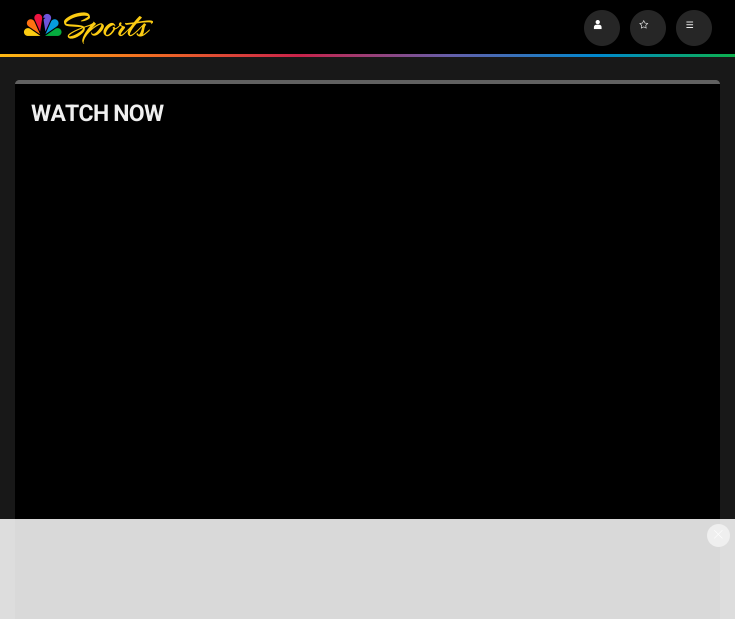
import math
import cairo

surface = cairo.ImageSurface(cairo.Format.RGB24, 735, 619)
ctx = cairo.Context(surface)
options = cairo.FontOptions()
options.set_hint_metrics(cairo.HintMetrics.OFF)
options.set_hint_style(cairo.HintStyle.NONE)
ctx.set_font_options(options)
ctx.set_miter_limit(4)


def ink(r, g, b):
    ctx.set_source_rgb(r / 255, g / 255, b / 255)


def write_spaced(x, y, s, letter, word):
    ctx.move_to(x, y)
    for ch in s:
        ctx.show_text(ch)
        ctx.rel_move_to(letter + word * (ch == ' '), 0)


def block(x, y, w, h, *color):
    ink(*color)
    ctx.rectangle(x, y, w, h)
    ctx.fill()


def round_path(x, y, w, h, r):
    ctx.new_sub_path()
    for i, (u, v) in enumerate([(x + w - r, y + h - r), (x + r, y + h - r), (x + r, y + r), (x + w - r, y + r)]):
        ctx.arc(u, v, r, i * math.pi / 2, (i + 1) * math.pi / 2)
    ctx.close_path()


def paste(path, x, y, w, h):
    ctx.save()
    ctx.set_source_surface(cairo.ImageSurface.create_from_png(path), x, y)
    ctx.rectangle(x, y, w, h)
    ctx.fill()
    ctx.restore()


ink(24, 24, 24)
ctx.paint()
block(0, 0, 735, 54, 0, 0, 0)
paste("pic1.png", 23, 12, 130, 32)
ink(38, 38, 38)
ctx.arc(602, 28, 18, 0, 2 * math.pi)
ctx.fill()
paste("pic2.png", 593, 20, 9, 10)
ctx.arc(648, 28, 18, 0, 2 * math.pi)
ctx.fill()
paste("pic3.png", 639, 20, 10, 9)
ctx.arc(694, 28, 18, 0, 2 * math.pi)
ctx.fill()
paste("pic4.png", 686, 21, 8, 7)
paste("pic5.png", 0, 54, 735, 3)
ink(0, 0, 0)
round_path(15, 80, 705, 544, 5)
ctx.fill()
ink(97, 97, 97)
ctx.new_path()
ctx.move_to(19, 80)
ctx.line_to(716, 80)
ctx.curve_to(718, 80, 720, 82, 720, 84)
ctx.line_to(15, 84)
ctx.curve_to(15, 82, 17, 80, 19, 80)
ctx.close_path()
ctx.fill()
ctx.select_font_face("Roboto", cairo.FontSlant.NORMAL, cairo.FontWeight.BOLD)
ctx.set_font_size(23)
ink(240, 240, 240)
write_spaced(31, 121, "WATCH NOW", -0.75, 0)
ctx.set_source_rgba(1, 1, 1, 0.85)
ctx.rectangle(0, 519, 735, 100)
ctx.fill()
ink(239, 239, 239)
ctx.arc(718.5, 535.5, 11.5, 0, 2 * math.pi)
ctx.fill()
paste("pic6.png", 714, 530, 9, 9)
surface.write_to_png("screenshot.png")
